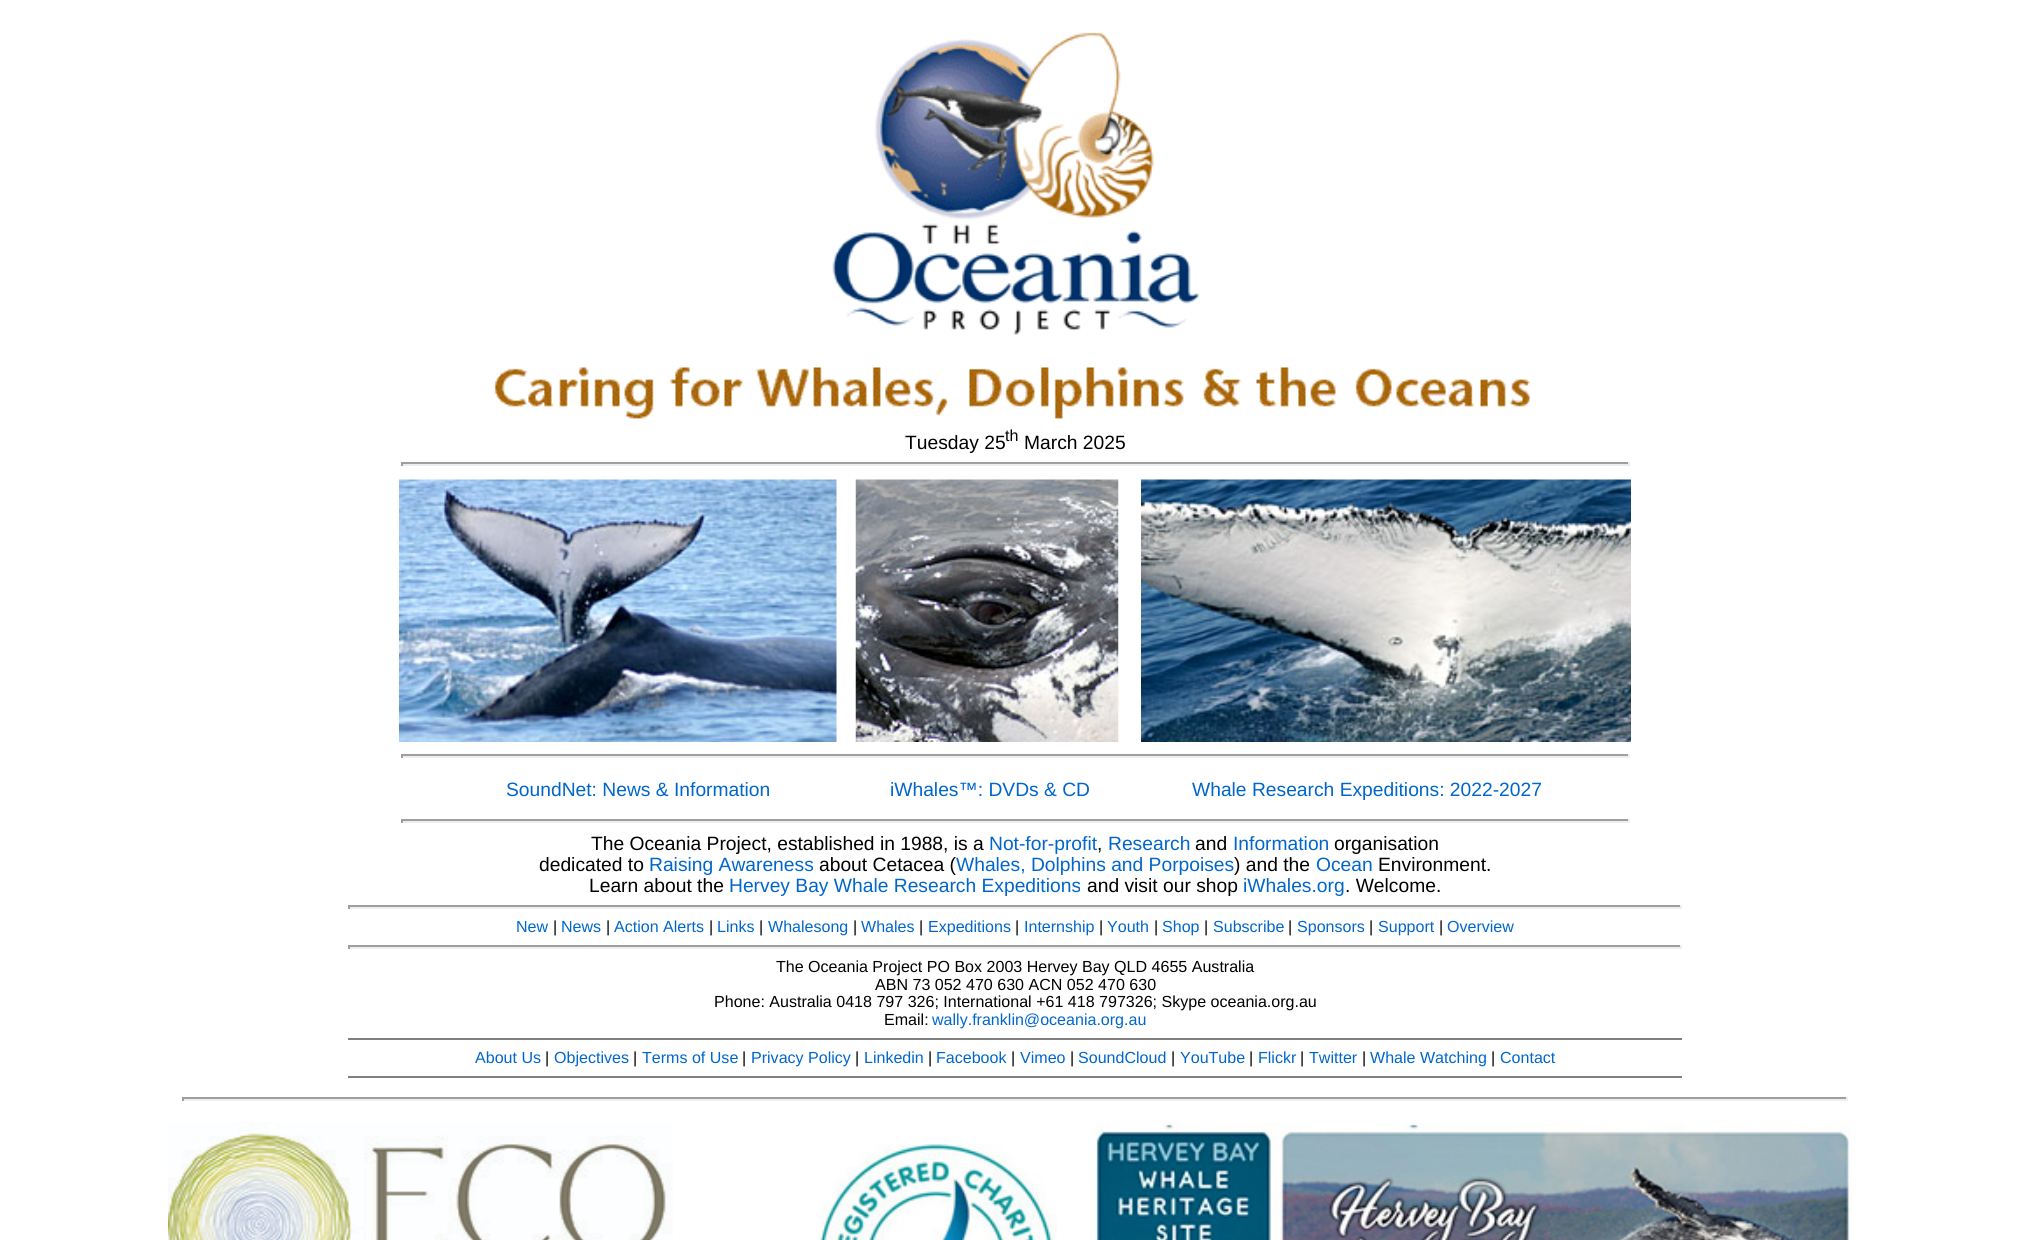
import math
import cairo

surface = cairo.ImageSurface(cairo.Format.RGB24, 2030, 1240)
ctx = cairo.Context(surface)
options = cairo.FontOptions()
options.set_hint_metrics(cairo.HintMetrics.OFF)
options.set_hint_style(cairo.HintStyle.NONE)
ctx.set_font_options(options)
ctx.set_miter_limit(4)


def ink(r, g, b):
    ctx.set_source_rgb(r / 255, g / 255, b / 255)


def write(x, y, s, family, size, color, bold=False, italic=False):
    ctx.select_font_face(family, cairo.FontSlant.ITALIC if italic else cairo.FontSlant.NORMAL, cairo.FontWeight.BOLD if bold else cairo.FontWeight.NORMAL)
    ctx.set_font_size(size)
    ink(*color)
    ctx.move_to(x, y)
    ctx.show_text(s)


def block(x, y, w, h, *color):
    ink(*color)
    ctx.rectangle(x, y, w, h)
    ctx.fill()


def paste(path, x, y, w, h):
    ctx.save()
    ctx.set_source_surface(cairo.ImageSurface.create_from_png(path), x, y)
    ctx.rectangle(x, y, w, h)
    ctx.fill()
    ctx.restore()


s1 = dict(family="Liberation Sans", size=19.25, color=(0, 0, 0))
s2 = dict(family="Liberation Sans", size=16.05, color=(0, 0, 0))
s3 = dict(family="Liberation Sans", size=19.25, color=(0, 102, 204))
s4 = dict(family="Liberation Sans", size=16.05, color=(0, 102, 204))

ink(255, 255, 255)
ctx.paint()
paste("pic1.png", 832, 32, 368, 303)
paste("pic2.png", 494, 367, 1036, 52)
write(905, 449, "Tuesday 25", **s1)
write(1005, 441, "th", **s2)
write(1024, 449, "March 2025", **s1)
block(401, 462, 1228, 2, 159, 159, 159)
block(1628, 462, 2, 4, 238, 238, 238)
block(401, 464, 1228, 2, 238, 238, 238)
block(401, 462, 2, 4, 159, 159, 159)
paste("pic3.png", 399, 479, 438, 263)
paste("pic4.png", 855, 479, 264, 263)
paste("pic5.png", 1141, 479, 490, 263)
block(401, 754, 1228, 2, 159, 159, 159)
block(1628, 754, 2, 4, 238, 238, 238)
block(401, 756, 1228, 2, 238, 238, 238)
block(401, 754, 2, 4, 159, 159, 159)
write(506, 796, "SoundNet: News & Information", **s3)
write(890, 796, "iWhales™: DVDs & CD", **s3)
write(1192, 796, "Whale Research Expeditions: 2022-2027", **s3)
block(401, 819, 1228, 2, 159, 159, 159)
block(1628, 819, 2, 4, 238, 238, 238)
block(401, 821, 1228, 2, 238, 238, 238)
block(401, 819, 2, 4, 159, 159, 159)
write(591, 850, "The Oceania Project, established in 1988, is a", **s1)
write(989, 850, "Not-for-profit", **s3)
write(1097, 850, ",", **s1)
write(1108, 850, "Research", **s3)
write(1195, 850, "and", **s1)
write(1233, 850, "Information", **s3)
write(1334, 850, "organisation", **s1)
write(539, 871, "dedicated to", **s1)
write(649, 871, "Raising Awareness", **s3)
write(819, 871, "about Cetacea (", **s1)
write(956, 871, "Whales, Dolphins and Porpoises", **s3)
write(1234, 871, ") and the", **s1)
write(1316, 871, "Ocean", **s3)
write(1378, 871, "Environment.", **s1)
write(589, 892, "Learn about the", **s1)
write(729, 892, "Hervey Bay Whale Research Expeditions", **s3)
write(1087, 892, "and visit our shop", **s1)
write(1243, 892, "iWhales.org", **s3)
write(1345, 892, ". Welcome.", **s1)
block(348, 905, 1334, 2, 159, 159, 159)
block(1680, 905, 2, 4, 238, 238, 238)
block(348, 907, 1334, 2, 238, 238, 238)
block(348, 905, 2, 4, 159, 159, 159)
write(516, 932, "New", **s4)
write(553, 932, "|", **s2)
write(561, 932, "News", **s4)
write(606, 932, "|", **s2)
write(614, 932, "Action Alerts", **s4)
write(709, 932, "|", **s2)
write(717, 932, "Links", **s4)
write(759, 932, "|", **s2)
write(768, 932, "Whalesong", **s4)
write(853, 932, "|", **s2)
write(861, 932, "Whales", **s4)
write(919, 932, "|", **s2)
write(928, 932, "Expeditions", **s4)
write(1015, 932, "|", **s2)
write(1024, 932, "Internship", **s4)
write(1099, 932, "|", **s2)
write(1107, 932, "Youth", **s4)
write(1154, 932, "|", **s2)
write(1162, 932, "Shop", **s4)
write(1204, 932, "|", **s2)
write(1213, 932, "Subscribe", **s4)
write(1288, 932, "|", **s2)
write(1297, 932, "Sponsors", **s4)
write(1369, 932, "|", **s2)
write(1378, 932, "Support", **s4)
write(1439, 932, "|", **s2)
write(1447, 932, "Overview", **s4)
block(348, 945, 1334, 2, 159, 159, 159)
block(1680, 945, 2, 4, 238, 238, 238)
block(348, 947, 1334, 2, 238, 238, 238)
block(348, 945, 2, 4, 159, 159, 159)
write(776, 972, "The Oceania Project PO Box 2003 Hervey Bay QLD 4655 Australia", **s2)
write(875, 990, "ABN 73 052 470 630 ACN 052 470 630", **s2)
write(714, 1007, "Phone: Australia 0418 797 326; International +61 418 797326; Skype oceania.org.au", **s2)
write(884, 1025, "Email:", **s2)
write(932, 1025, "wally.franklin@oceania.org.au", **s4)
block(348, 1038, 1334, 2, 128, 128, 128)
write(475, 1063, "About Us", **s4)
write(545, 1063, "|", **s2)
write(554, 1063, "Objectives", **s4)
write(633, 1063, "|", **s2)
write(642, 1063, "Terms of Use", **s4)
write(742, 1063, "|", **s2)
write(751, 1063, "Privacy Policy", **s4)
write(855, 1063, "|", **s2)
write(864, 1063, "Linkedin", **s4)
write(928, 1063, "|", **s2)
write(936, 1063, "Facebook", **s4)
write(1011, 1063, "|", **s2)
write(1020, 1063, "Vimeo", **s4)
write(1070, 1063, "|", **s2)
write(1078, 1063, "SoundCloud", **s4)
write(1171, 1063, "|", **s2)
write(1180, 1063, "YouTube", **s4)
write(1249, 1063, "|", **s2)
write(1258, 1063, "Flickr", **s4)
write(1300, 1063, "|", **s2)
write(1309, 1063, "Twitter", **s4)
write(1362, 1063, "|", **s2)
write(1370, 1063, "Whale Watching", **s4)
write(1491, 1063, "|", **s2)
write(1500, 1063, "Contact", **s4)
block(348, 1076, 1334, 2, 128, 128, 128)
block(182, 1097, 1666, 2, 159, 159, 159)
block(1846, 1097, 2, 4, 238, 238, 238)
block(182, 1099, 1666, 2, 238, 238, 238)
block(182, 1097, 2, 4, 159, 159, 159)
paste("pic6.png", 168, 1122, 505, 118)
paste("pic7.png", 819, 1144, 238, 96)
paste("pic8.png", 1095, 1122, 757, 118)
surface.write_to_png("screenshot.png")
